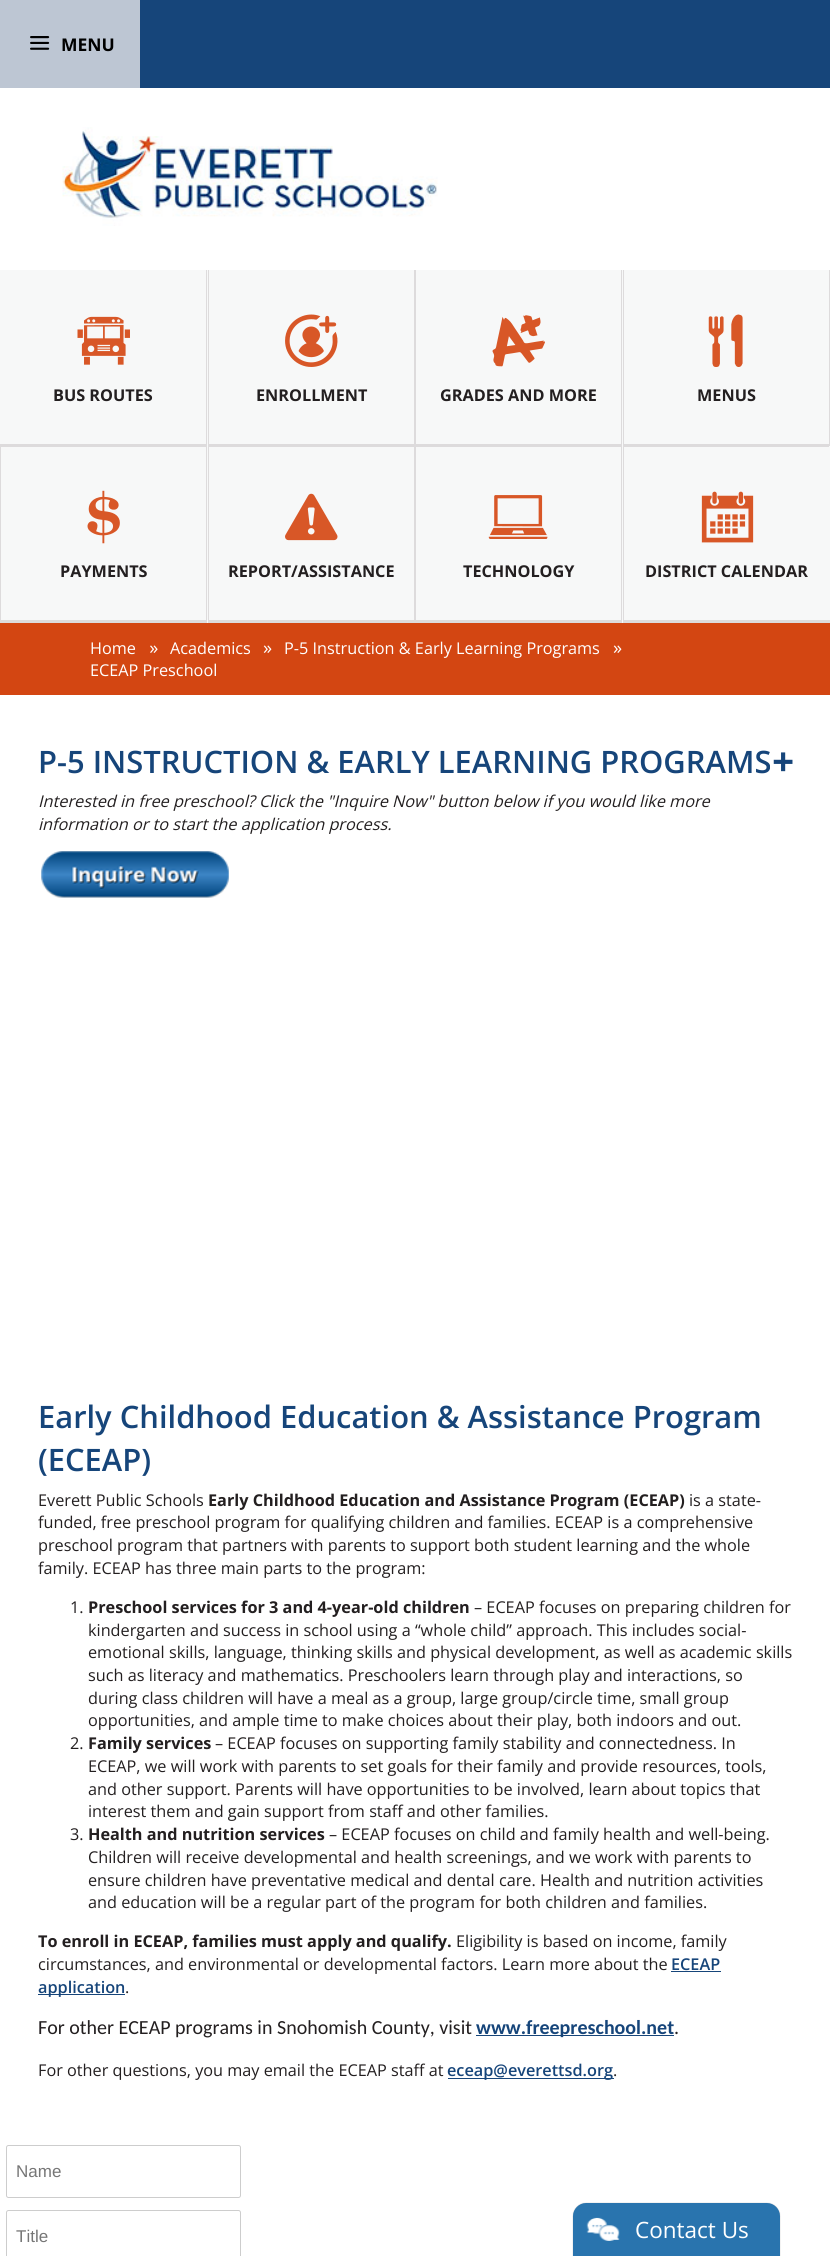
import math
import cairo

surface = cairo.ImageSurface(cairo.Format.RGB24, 830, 2256)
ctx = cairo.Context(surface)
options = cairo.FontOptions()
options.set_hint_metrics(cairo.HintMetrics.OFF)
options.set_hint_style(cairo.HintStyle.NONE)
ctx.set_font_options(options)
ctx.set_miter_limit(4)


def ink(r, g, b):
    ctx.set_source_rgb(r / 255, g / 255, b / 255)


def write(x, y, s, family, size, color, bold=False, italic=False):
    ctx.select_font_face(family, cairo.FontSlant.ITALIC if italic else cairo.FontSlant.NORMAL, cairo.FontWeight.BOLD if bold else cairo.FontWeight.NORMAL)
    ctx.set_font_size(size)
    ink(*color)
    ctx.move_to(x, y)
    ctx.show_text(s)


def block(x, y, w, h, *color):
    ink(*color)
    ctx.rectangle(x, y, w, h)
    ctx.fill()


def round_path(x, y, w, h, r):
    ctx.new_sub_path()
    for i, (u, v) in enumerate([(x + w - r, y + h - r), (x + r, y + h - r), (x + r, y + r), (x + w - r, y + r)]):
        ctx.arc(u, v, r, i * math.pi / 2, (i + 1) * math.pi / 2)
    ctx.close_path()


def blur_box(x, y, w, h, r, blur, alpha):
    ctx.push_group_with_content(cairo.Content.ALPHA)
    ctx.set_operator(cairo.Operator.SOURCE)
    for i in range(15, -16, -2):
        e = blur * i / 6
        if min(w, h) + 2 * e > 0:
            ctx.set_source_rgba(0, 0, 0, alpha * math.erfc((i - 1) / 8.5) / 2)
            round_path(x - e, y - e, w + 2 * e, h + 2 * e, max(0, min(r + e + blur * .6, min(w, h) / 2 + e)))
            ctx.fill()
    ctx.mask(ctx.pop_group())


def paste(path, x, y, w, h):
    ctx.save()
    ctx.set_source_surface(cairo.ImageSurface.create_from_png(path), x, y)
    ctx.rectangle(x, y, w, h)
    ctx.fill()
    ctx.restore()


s1 = dict(family="Open Sans", size=17.5, color=(0, 0, 0), bold=True)
s2 = dict(family="Open Sans", size=16.25, color=(35, 31, 32), bold=True)
s3 = dict(family="Open Sans", size=16.25, color=(255, 255, 255))
s4 = dict(family="Open Sans SemiBold", size=30.9, color=(22, 69, 122))
s5 = dict(family="Open Sans", size=16.25, color=(35, 31, 32), italic=True)
s6 = dict(family="Open Sans", size=16.25, color=(35, 31, 32))
s7 = dict(family="Open Sans SemiBold", size=16.25, color=(22, 69, 122))
s8 = dict(family="Carlito", size=20, color=(35, 31, 32))
s9 = dict(family="Carlito", size=20, color=(22, 69, 122), bold=True)
s10 = dict(family="Liberation Sans", size=17, color=(118, 118, 118))
s11 = dict(family="Open Sans", size=22.5, color=(255, 255, 255))

ink(255, 255, 255)
ctx.paint()
block(140, 0, 690, 88, 22, 69, 122)
block(0, 0, 140, 88, 189, 198, 211)
paste("pic1.png", 30, 36, 20, 14)
write(61, 51, "MENU", **s1)
paste("pic2.png", 62, 127, 376, 99)
block(0, 270, 830, 353, 247, 248, 248)
block(206, 270, 1, 353, 221, 219, 220)
block(0, 446, 1, 177, 221, 219, 220)
block(0, 444, 206, 3, 221, 219, 220)
paste("pic3.png", 77, 316, 53, 49)
write(53, 401, "BUS ROUTES", **s2)
block(414, 270, 2, 176, 221, 219, 220)
block(208, 270, 1, 353, 221, 219, 220)
block(209, 444, 205, 3, 221, 219, 220)
paste("pic4.png", 285, 314, 53, 53)
write(256, 401, "ENROLLMENT", **s2)
block(621, 270, 1, 353, 221, 219, 220)
block(416, 444, 205, 3, 221, 219, 220)
paste("pic5.png", 492, 315, 53, 52)
write(440, 401, "GRADES AND MORE", **s2)
block(829, 270, 1, 176, 221, 219, 220)
block(623, 270, 1, 353, 221, 219, 220)
block(624, 444, 205, 3, 221, 219, 220)
paste("pic6.png", 708, 314, 35, 53)
write(697, 401, "MENUS", **s2)
block(1, 620, 205, 3, 221, 219, 220)
paste("pic7.png", 87, 490, 33, 54)
write(60, 577, "PAYMENTS", **s2)
block(414, 446, 2, 177, 221, 219, 220)
block(209, 620, 205, 3, 221, 219, 220)
paste("pic8.png", 285, 493, 53, 48)
write(228, 577, "REPORT/ASSISTANCE", **s2)
block(416, 620, 205, 3, 221, 219, 220)
paste("pic9.png", 488, 495, 60, 44)
write(463, 577, "TECHNOLOGY", **s2)
block(624, 620, 206, 3, 221, 219, 220)
paste("pic10.png", 701, 491, 53, 52)
write(645, 577, "DISTRICT CALENDAR", **s2)
block(0, 623, 830, 72, 211, 70, 18)
write(90, 654, "Home", **s3)
paste("pic11.png", 150, 645, 8, 8)
write(170, 654, "Academics", **s3)
paste("pic12.png", 263, 645, 9, 8)
write(284, 654, "P-5 Instruction & Early Learning Programs", **s3)
paste("pic12.png", 613, 645, 9, 8)
write(90, 676, "ECEAP Preschool", **s3)
write(38, 773, "P-5 INSTRUCTION & EARLY LEARNING PROGRAMS", **s4)
paste("pic13.png", 773, 752, 20, 20)
write(38, 807, "Interested in free preschool? Click the \"Inquire Now\" button below if you would like more", **s5)
write(38, 830, "information or to start the application process.", **s5)
paste("pic14.png", 41, 851, 188, 47)
write(38, 1428, "Early Childhood Education & Assistance Program", **s4)
write(38, 1471, "(ECEAP)", **s4)
write(38, 1506, "Everett Public Schools", **s6)
write(208, 1506, "Early Childhood Education and Assistance Program (ECEAP)", **s2)
write(689, 1506, "is a state-", **s6)
write(38, 1528, "funded, free preschool program for qualifying children and families. ECEAP is a comprehensive", **s6)
write(38, 1551, "preschool program that partners with parents to support both student learning and the whole", **s6)
write(38, 1574, "family. ECEAP has three main parts to the program:", **s6)
write(70, 1613, "1.", **s6)
write(88, 1613, "Preschool services for 3 and 4-year-old children", **s2)
write(474, 1613, "– ECEAP focuses on preparing children for", **s6)
write(88, 1636, "kindergarten and success in school using a “whole child” approach. This includes social-", **s6)
write(88, 1658, "emotional skills, language, thinking skills and physical development, as well as academic skills", **s6)
write(88, 1681, "such as literacy and mathematics. Preschoolers learn through play and interactions, so", **s6)
write(88, 1704, "during class children will have a meal as a group, large group/circle time, small group", **s6)
write(88, 1726, "opportunities, and ample time to make choices about their play, both indoors and out.", **s6)
write(70, 1749, "2.", **s6)
write(88, 1749, "Family services", **s2)
write(215, 1749, "– ECEAP focuses on supporting family stability and connectedness. In", **s6)
write(88, 1772, "ECEAP, we will work with parents to set goals for their family and provide resources, tools,", **s6)
write(88, 1795, "and other support. Parents will have opportunities to be involved, learn about topics that", **s6)
write(88, 1817, "interest them and gain support from staff and other families.", **s6)
write(70, 1840, "3.", **s6)
write(88, 1840, "Health and nutrition services", **s2)
write(329, 1840, "– ECEAP focuses on child and family health and well-being.", **s6)
write(88, 1863, "Children will receive developmental and health screenings, and we work with parents to", **s6)
write(88, 1886, "ensure children have preventative medical and dental care. Health and nutrition activities", **s6)
write(88, 1908, "and education will be a regular part of the program for both children and families.", **s6)
write(38, 1947, "To enroll in ECEAP, families must apply and qualify.", **s2)
write(456, 1947, "Eligibility is based on income, family", **s6)
write(38, 1970, "circumstances, and environmental or developmental factors. Learn more about the", **s6)
write(671, 1970, "ECEAP", **s7)
block(671, 1971, 50, 1, 22, 69, 122)
block(38, 1994, 87, 1, 22, 69, 122)
write(38, 1993, "application", **s7)
write(125, 1993, ".", **s6)
write(38, 2034, "For other ECEAP programs in Snohomish County, visit", **s8)
block(476, 2035, 198, 1, 22, 69, 122)
write(476, 2034, "www.freepreschool.net", **s9)
write(674, 2034, ".", **s8)
write(38, 2076, "For other questions, you may email the ECEAP staff at", **s6)
block(448, 2078, 166, 1, 22, 69, 122)
write(447, 2076, "eceap@everettsd.org", **s7)
write(613, 2076, ".", **s6)
round_path(6.5, 2145.5, 234, 52, 2)
ink(205, 205, 205)
ctx.set_line_width(1)
ctx.stroke()
write(16, 2177, "Name", **s10)
round_path(6.5, 2210.5, 234, 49, 2)
ink(205, 205, 205)
ctx.stroke()
write(16, 2242, "Title", **s10)
ink(0, 0, 0)
blur_box(573, 2203, 207, 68, 13, 0.5, 0.22)
ink(41, 116, 174)
ctx.new_path()
ctx.move_to(586, 2203)
ctx.line_to(767, 2203)
ctx.curve_to(774, 2203, 780, 2209, 780, 2216)
ctx.line_to(780, 2256)
ctx.line_to(573, 2256)
ctx.line_to(573, 2216)
ctx.curve_to(573, 2209, 579, 2203, 586, 2203)
ctx.close_path()
ctx.fill()
paste("pic15.png", 586, 2217, 34, 24)
write(635, 2238, "Contact Us", **s11)
surface.write_to_png("screenshot.png")
